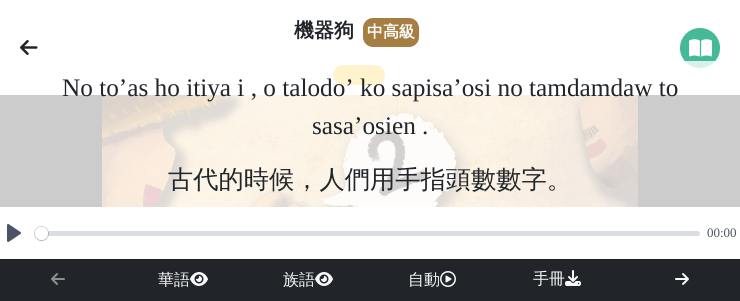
import math
import cairo

surface = cairo.ImageSurface(cairo.Format.RGB24, 740, 301)
ctx = cairo.Context(surface)
options = cairo.FontOptions()
options.set_hint_metrics(cairo.HintMetrics.OFF)
options.set_hint_style(cairo.HintStyle.NONE)
ctx.set_font_options(options)
ctx.set_miter_limit(4)


def ink(r, g, b):
    ctx.set_source_rgb(r / 255, g / 255, b / 255)


def write(x, y, s, family, size, color, bold=False, italic=False):
    ctx.select_font_face(family, cairo.FontSlant.ITALIC if italic else cairo.FontSlant.NORMAL, cairo.FontWeight.BOLD if bold else cairo.FontWeight.NORMAL)
    ctx.set_font_size(size)
    ink(*color)
    ctx.move_to(x, y)
    ctx.show_text(s)


def block(x, y, w, h, *color):
    ink(*color)
    ctx.rectangle(x, y, w, h)
    ctx.fill()


def round_path(x, y, w, h, r):
    ctx.new_sub_path()
    for i, (u, v) in enumerate([(x + w - r, y + h - r), (x + r, y + h - r), (x + r, y + r), (x + w - r, y + r)]):
        ctx.arc(u, v, r, i * math.pi / 2, (i + 1) * math.pi / 2)
    ctx.close_path()


def blur_box(x, y, w, h, r, blur, alpha):
    ctx.push_group_with_content(cairo.Content.ALPHA)
    ctx.set_operator(cairo.Operator.SOURCE)
    for i in range(15, -16, -2):
        e = blur * i / 6
        if min(w, h) + 2 * e > 0:
            ctx.set_source_rgba(0, 0, 0, alpha * math.erfc((i - 1) / 8.5) / 2)
            round_path(x - e, y - e, w + 2 * e, h + 2 * e, max(0, min(r + e + blur * .6, min(w, h) / 2 + e)))
            ctx.fill()
    ctx.mask(ctx.pop_group())


def paste(path, x, y, w, h):
    ctx.save()
    ctx.set_source_surface(cairo.ImageSurface.create_from_png(path), x, y)
    ctx.rectangle(x, y, w, h)
    ctx.fill()
    ctx.restore()


s1 = dict(family="WenQuanYi Zen Hei", size=20, color=(33, 37, 41), bold=True)
s2 = dict(family="WenQuanYi Zen Hei", size=16, color=(255, 255, 255), bold=True)
s3 = dict(family="Liberation Serif", size=25.25, color=(33, 37, 41))
s4 = dict(family="WenQuanYi Zen Hei Medium", size=25.25, color=(33, 37, 41))
s5 = dict(family="Liberation Serif", size=13, color=(74, 84, 100))
s6 = dict(family="WenQuanYi Zen Hei Medium", size=16, color=(248, 249, 250))

ink(255, 255, 255)
ctx.paint()
paste("pic1.png", 20, 40, 18, 15)
write(294, 37, "機器狗", **s1)
ink(166, 125, 66)
round_path(363, 18, 56, 29, 10)
ctx.fill()
write(367, 37, "中高級", **s2)
ink(255, 193, 7)
round_path(333, 65, 52, 20, 10)
ctx.fill()
paste("pic2.png", 680, 28, 40, 40)
block(0, 95, 740, 112, 0, 0, 0)
paste("pic9.png", 102, 95, 536, 112)
ctx.set_source_rgba(1, 1, 1, 0.8)
ctx.rectangle(0, 61, 740, 92)
ctx.fill()
write(62, 96, "No to’as ho itiya i , o talodo’ ko sapisa’osi no tamdamdaw to", **s3)
write(312, 134, "sasa’osien .", **s3)
ctx.set_source_rgba(1, 1, 1, 0.8)
ctx.rectangle(0, 153, 740, 54)
ctx.fill()
write(168, 188, "古代的時候，人們用手指頭數數字。", **s4)
block(0, 259, 740, 42, 33, 37, 41)
paste("pic3.png", 7, 224, 14, 18)
ctx.set_source_rgba(0.757, 0.784, 0.82, 0.6)
round_path(35, 231, 665, 5, 2.5)
ctx.fill()
ctx.arc(41.5, 233.5, 7, 0, 2 * math.pi)
ctx.set_source_rgba(0.137, 0.157, 0.184, 0.2)
ctx.set_line_width(1)
ctx.stroke()
ink(35, 40, 47)
blur_box(35, 228, 13, 13, 6.5, 0.5, 0.15)
ink(255, 255, 255)
ctx.new_path()
ctx.move_to(38.5, 223.5)
ctx.line_to(44.5, 223.5)
ctx.line_to(41.5, 226.5)
ctx.close_path()
ctx.fill()
ctx.arc(41.5, 233.5, 6.5, 0, 2 * math.pi)
ctx.fill()
write(707, 237, "00:00", **s5)
paste("pic4.png", 51, 273, 14, 12)
write(158, 285, "華語", **s6)
paste("pic5.png", 190, 272, 18, 14)
write(283, 285, "族語", **s6)
paste("pic5.png", 315, 272, 18, 14)
write(408, 285, "自動", **s6)
paste("pic6.png", 440, 271, 16, 16)
write(533, 284, "手冊", **s6)
paste("pic7.png", 565, 270, 16, 16)
paste("pic8.png", 675, 273, 14, 12)
surface.write_to_png("screenshot.png")
